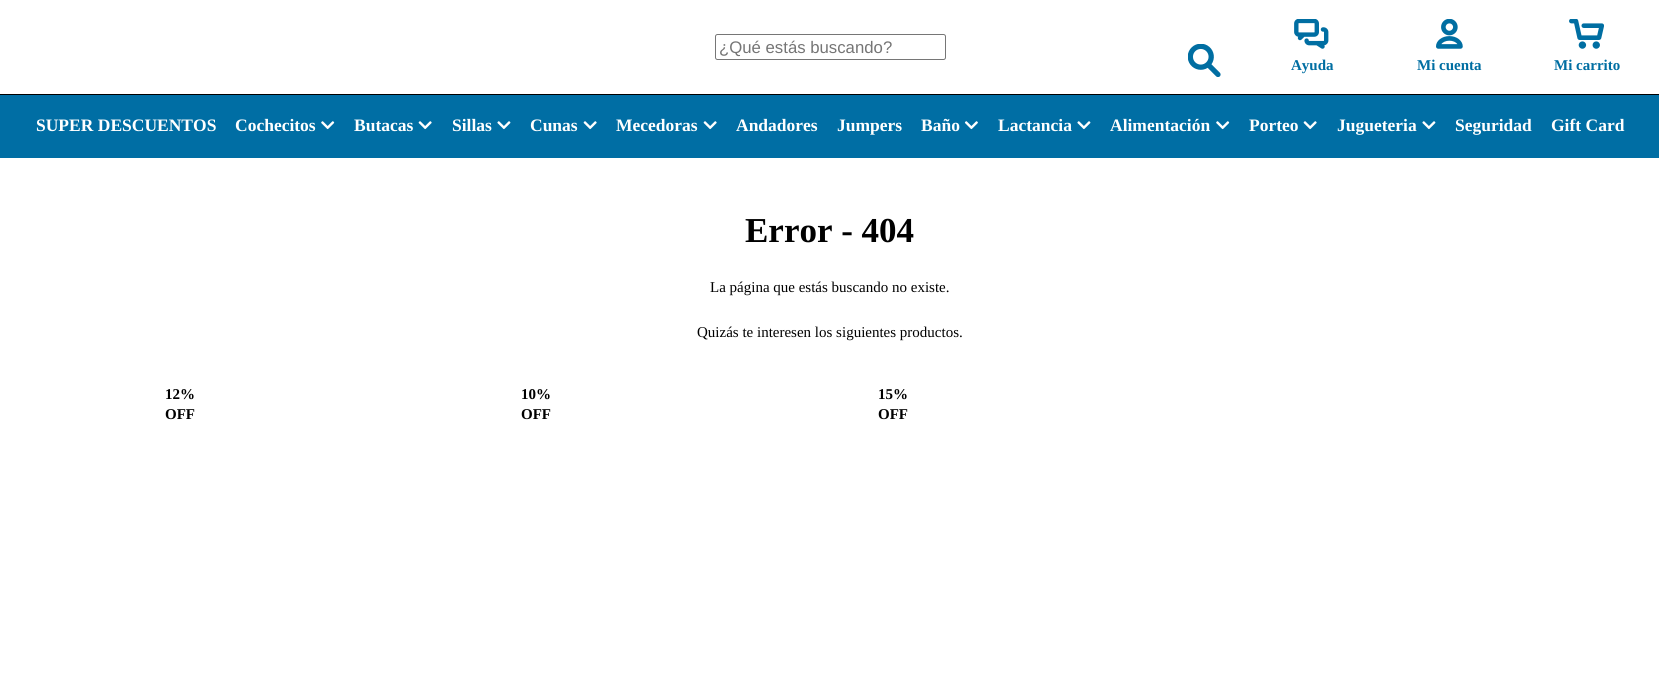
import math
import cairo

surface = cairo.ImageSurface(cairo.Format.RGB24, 1659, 688)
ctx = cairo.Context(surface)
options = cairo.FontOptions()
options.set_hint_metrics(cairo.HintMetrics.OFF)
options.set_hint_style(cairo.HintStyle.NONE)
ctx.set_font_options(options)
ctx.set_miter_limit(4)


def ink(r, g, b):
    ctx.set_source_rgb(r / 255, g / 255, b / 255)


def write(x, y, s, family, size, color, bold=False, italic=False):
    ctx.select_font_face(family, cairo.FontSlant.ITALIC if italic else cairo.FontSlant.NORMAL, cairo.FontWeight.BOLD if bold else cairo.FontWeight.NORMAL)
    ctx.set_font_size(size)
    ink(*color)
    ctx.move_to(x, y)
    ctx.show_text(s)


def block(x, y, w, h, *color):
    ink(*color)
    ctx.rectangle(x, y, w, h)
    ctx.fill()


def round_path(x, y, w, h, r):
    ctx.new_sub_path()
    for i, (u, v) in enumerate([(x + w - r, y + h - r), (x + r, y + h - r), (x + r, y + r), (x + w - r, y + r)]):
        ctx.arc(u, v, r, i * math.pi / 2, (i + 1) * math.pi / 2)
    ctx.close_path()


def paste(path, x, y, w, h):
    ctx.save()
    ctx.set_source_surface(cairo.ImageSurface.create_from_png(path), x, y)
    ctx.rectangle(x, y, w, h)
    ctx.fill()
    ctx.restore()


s1 = dict(family="Liberation Sans", size=16.75, color=(117, 117, 117))
s2 = dict(family="Liberation Serif", size=15, color=(0, 110, 162), bold=True)
s3 = dict(family="Liberation Serif", size=17.5, color=(255, 255, 255), bold=True)
s4 = dict(family="Liberation Serif", size=35, color=(0, 0, 0), bold=True)
s5 = dict(family="Liberation Serif", size=15, color=(0, 0, 0))
s6 = dict(family="Liberation Serif", size=15, color=(0, 0, 0), bold=True)

ink(255, 255, 255)
ctx.paint()
round_path(715.5, 34.5, 230, 25, 2)
ink(118, 118, 118)
ctx.set_line_width(1)
ctx.stroke()
write(719, 53, "¿Qué estás buscando?", **s1)
paste("pic1.png", 1188, 44, 33, 33)
paste("pic2.png", 1294, 19, 35, 30)
write(1291, 70, "Ayuda", **s2)
paste("pic3.png", 1436, 19, 27, 30)
write(1417, 70, "Mi cuenta", **s2)
paste("pic4.png", 1569, 19, 35, 30)
write(1554, 70, "Mi carrito", **s2)
block(0, 94, 1659, 1, 0, 0, 0)
block(0, 95, 1659, 63, 0, 110, 164)
write(36, 131, "SUPER DESCUENTOS", **s3)
write(235, 131, "Cochecitos", **s3)
paste("pic5.png", 321, 121, 14, 9)
write(354, 131, "Butacas", **s3)
paste("pic6.png", 418, 121, 14, 9)
write(452, 131, "Sillas", **s3)
paste("pic7.png", 497, 121, 14, 9)
write(530, 131, "Cunas", **s3)
paste("pic6.png", 583, 121, 14, 9)
write(616, 131, "Mecedoras", **s3)
paste("pic6.png", 703, 121, 14, 9)
write(736, 131, "Andadores", **s3)
write(837, 131, "Jumpers", **s3)
write(921, 131, "Baño", **s3)
paste("pic8.png", 964, 121, 14, 9)
write(998, 131, "Lactancia", **s3)
paste("pic7.png", 1077, 121, 14, 9)
write(1110, 131, "Alimentación", **s3)
paste("pic5.png", 1216, 121, 14, 9)
write(1249, 131, "Porteo", **s3)
paste("pic6.png", 1303, 121, 14, 9)
write(1337, 131, "Jugueteria", **s3)
paste("pic7.png", 1422, 121, 14, 9)
write(1455, 131, "Seguridad", **s3)
write(1551, 131, "Gift Card", **s3)
write(745, 242, "Error - 404", **s4)
write(710, 292, "La página que estás buscando no existe.", **s5)
write(697, 337, "Quizás te interesen los siguientes productos.", **s5)
write(165, 399, "12%", **s6)
write(165, 419, "OFF", **s6)
write(521, 399, "10%", **s6)
write(521, 419, "OFF", **s6)
write(878, 399, "15%", **s6)
write(878, 419, "OFF", **s6)
surface.write_to_png("screenshot.png")
